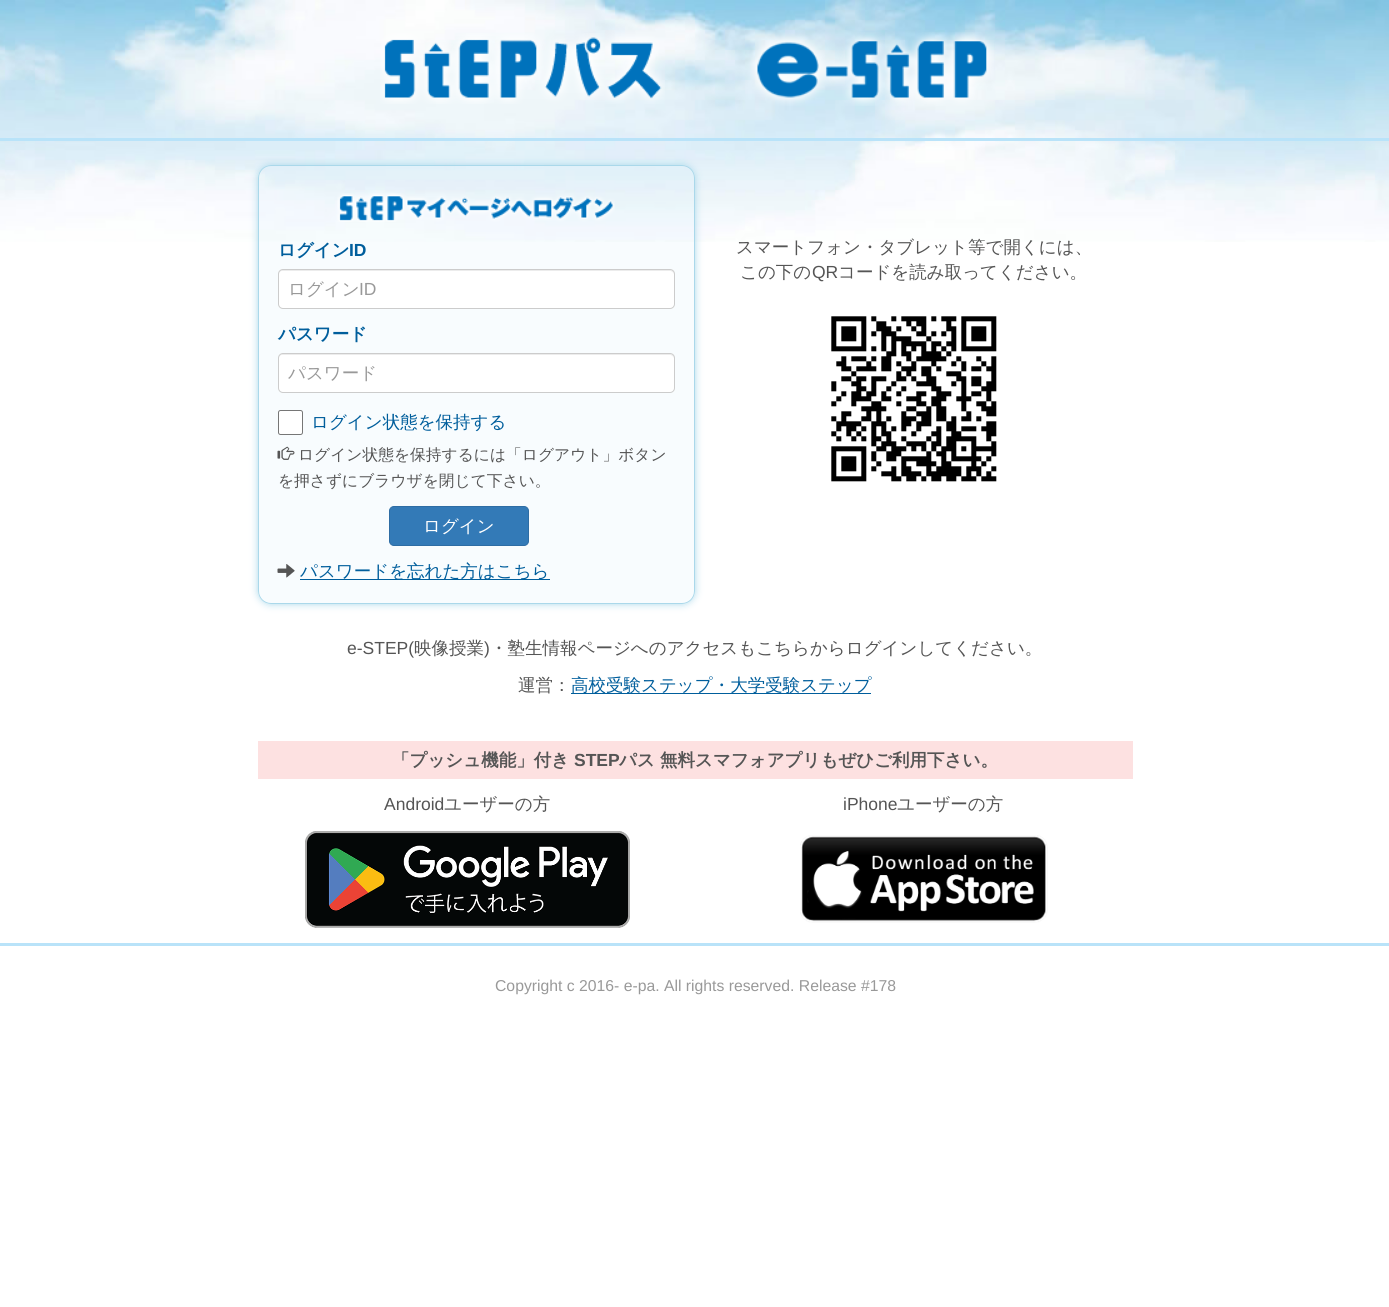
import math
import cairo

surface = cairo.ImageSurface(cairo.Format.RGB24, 1389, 1307)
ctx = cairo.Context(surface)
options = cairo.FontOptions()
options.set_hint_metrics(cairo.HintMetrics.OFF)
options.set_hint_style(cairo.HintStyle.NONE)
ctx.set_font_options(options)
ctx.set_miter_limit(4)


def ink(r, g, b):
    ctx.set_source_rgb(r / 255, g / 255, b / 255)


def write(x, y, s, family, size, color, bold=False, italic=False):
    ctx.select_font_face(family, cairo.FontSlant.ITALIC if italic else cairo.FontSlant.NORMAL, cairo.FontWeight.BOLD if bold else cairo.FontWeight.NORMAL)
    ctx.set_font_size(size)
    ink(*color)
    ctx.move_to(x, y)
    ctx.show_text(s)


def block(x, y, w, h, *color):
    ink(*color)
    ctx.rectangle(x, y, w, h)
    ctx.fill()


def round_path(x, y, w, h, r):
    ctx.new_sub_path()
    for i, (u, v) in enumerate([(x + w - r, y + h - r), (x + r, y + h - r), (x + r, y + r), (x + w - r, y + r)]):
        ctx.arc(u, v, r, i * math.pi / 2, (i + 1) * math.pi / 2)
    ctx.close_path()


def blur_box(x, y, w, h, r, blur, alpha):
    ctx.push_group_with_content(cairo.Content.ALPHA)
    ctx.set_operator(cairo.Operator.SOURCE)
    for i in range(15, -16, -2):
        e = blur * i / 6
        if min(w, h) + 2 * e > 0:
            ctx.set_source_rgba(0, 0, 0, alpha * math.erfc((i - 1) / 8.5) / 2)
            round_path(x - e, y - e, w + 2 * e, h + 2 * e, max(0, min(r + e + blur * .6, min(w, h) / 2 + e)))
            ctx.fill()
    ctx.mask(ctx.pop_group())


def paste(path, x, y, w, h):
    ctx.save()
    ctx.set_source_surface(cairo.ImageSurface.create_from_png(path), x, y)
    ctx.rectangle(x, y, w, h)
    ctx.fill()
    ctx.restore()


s1 = dict(family="WenQuanYi Zen Hei", size=17.5, color=(0, 94, 156), bold=True)
s2 = dict(family="Liberation Sans", size=17.5, color=(0, 94, 156), bold=True)
s3 = dict(family="WenQuanYi Zen Hei Medium", size=17.5, color=(153, 153, 153))
s4 = dict(family="Liberation Sans", size=17.5, color=(153, 153, 153))
s5 = dict(family="WenQuanYi Zen Hei Medium", size=17.5, color=(0, 94, 156))
s6 = dict(family="WenQuanYi Zen Hei Medium", size=15.75, color=(85, 85, 85))
s7 = dict(family="WenQuanYi Zen Hei Medium", size=17.5, color=(255, 255, 255))
s8 = dict(family="WenQuanYi Zen Hei Medium", size=17.5, color=(85, 85, 85))
s9 = dict(family="Liberation Sans", size=17.5, color=(85, 85, 85))
s10 = dict(family="WenQuanYi Zen Hei", size=17.5, color=(85, 85, 85), bold=True)
s11 = dict(family="Liberation Sans", size=17.5, color=(85, 85, 85), bold=True)
s12 = dict(family="Liberation Sans", size=15.75, color=(153, 153, 153))

ink(255, 255, 255)
ctx.paint()
paste("pic1.png", 0, 0, 1389, 242)
paste("pic2.png", 380, 33, 285, 71)
paste("pic3.png", 750, 32, 244, 74)
block(0, 138, 1389, 3, 185, 227, 249)
ctx.save()
ctx.set_fill_rule(cairo.FillRule.EVEN_ODD)
ctx.new_path()
ctx.move_to(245, 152)
ctx.line_to(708, 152)
ctx.line_to(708, 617)
ctx.line_to(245, 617)
ctx.close_path()
ctx.move_to(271, 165)
ctx.line_to(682, 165)
ctx.curve_to(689, 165, 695, 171, 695, 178)
ctx.line_to(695, 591)
ctx.curve_to(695, 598, 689, 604, 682, 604)
ctx.line_to(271, 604)
ctx.curve_to(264, 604, 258, 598, 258, 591)
ctx.line_to(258, 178)
ctx.curve_to(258, 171, 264, 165, 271, 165)
ctx.close_path()
ctx.clip()
ink(170, 216, 234)
blur_box(258, 165, 437, 439, 13, 4, 1)
ctx.restore()
ctx.set_source_rgba(0.725, 0.89, 0.976, 0.1)
round_path(258.5, 165.5, 436, 438, 12.5)
ctx.fill_preserve()
ink(170, 216, 234)
ctx.set_line_width(1)
ctx.stroke()
paste("pic4.png", 337, 193, 278, 29)
write(278, 256, "ログイン", **s1)
write(349, 256, "ID", **s2)
ink(255, 255, 255)
round_path(278, 269, 397, 40, 5)
ctx.fill()
ink(236, 236, 236)
ctx.new_path()
ctx.move_to(282, 271)
ctx.line_to(670, 271)
ctx.curve_to(672, 271, 674, 273, 674, 275)
ctx.curve_to(674, 272, 673, 270, 670, 270)
ctx.line_to(283, 270)
ctx.curve_to(280, 270, 279, 272, 279, 275)
ctx.curve_to(279, 273, 280, 271, 282, 271)
ctx.close_path()
ctx.fill()
round_path(278.5, 269.5, 396, 39, 4.5)
ink(204, 204, 204)
ctx.stroke()
write(288, 295, "ログイン", **s3)
write(359, 295, "ID", **s4)
write(278, 340, "パスワード", **s1)
ink(255, 255, 255)
round_path(278, 353, 397, 40, 5)
ctx.fill()
ink(236, 236, 236)
ctx.new_path()
ctx.move_to(282, 355)
ctx.line_to(670, 355)
ctx.curve_to(672, 355, 674, 357, 674, 359)
ctx.curve_to(674, 356, 673, 354, 670, 354)
ctx.line_to(283, 354)
ctx.curve_to(280, 354, 279, 356, 279, 359)
ctx.curve_to(279, 357, 280, 355, 282, 355)
ctx.close_path()
ctx.fill()
round_path(278.5, 353.5, 396, 39, 4.5)
ink(204, 204, 204)
ctx.stroke()
write(288, 379, "パスワード", **s3)
ink(255, 255, 255)
round_path(278.5, 410.5, 24, 24, 2)
ctx.fill_preserve()
ink(118, 118, 118)
ctx.stroke()
write(311, 428, "ログイン状態を保持する", **s5)
paste("pic5.png", 277, 446, 18, 14)
write(298, 460, "ログイン状態を保持するには「ログアウト」ボタン", **s6)
write(278, 486, "を押さずにブラウザを閉じて下さい。", **s6)
ink(51, 122, 183)
round_path(389.5, 506.5, 139, 39, 4.5)
ctx.fill_preserve()
ink(46, 109, 164)
ctx.stroke()
write(423, 532, "ログイン", **s7)
paste("pic6.png", 277, 564, 18, 14)
block(300, 579, 250, 1, 0, 94, 156)
write(300, 577, "パスワードを忘れた方はこちら", **s5)
write(736, 253, "スマートフォン・タブレット等で開くには、", **s8)
write(740, 278, "この下の", **s8)
write(812, 278, "QR", **s9)
write(838, 278, "コードを読み取ってください。", **s8)
paste("pic7.png", 831, 316, 166, 166)
write(347, 654, "e-STEP(", **s9)
write(414, 654, "映像授業", **s8)
write(484, 654, ")", **s9)
write(490, 654, "・塾生情報ページへのアクセスもこちらからログインしてください。", **s8)
write(518, 691, "運営：", **s8)
block(571, 693, 300, 1, 0, 94, 156)
write(571, 691, "高校受験ステップ・大学受験ステップ", **s5)
block(258, 741, 875, 38, 253, 225, 225)
write(392, 766, "「プッシュ機能」付き", **s10)
write(574, 766, "STEP", **s11)
write(619, 766, "パス 無料スマフォアプリもぜひご利用下さい。", **s10)
write(384, 810, "Android", **s9)
write(444, 810, "ユーザーの方", **s8)
paste("pic8.png", 305, 831, 325, 97)
write(843, 810, "iPhone", **s9)
write(897, 810, "ユーザーの方", **s8)
paste("pic9.png", 800, 835, 248, 88)
block(0, 943, 1389, 3, 185, 227, 249)
write(495, 991, "Copyright c 2016- e-pa. All rights reserved. Release #178", **s12)
surface.write_to_png("screenshot.png")
